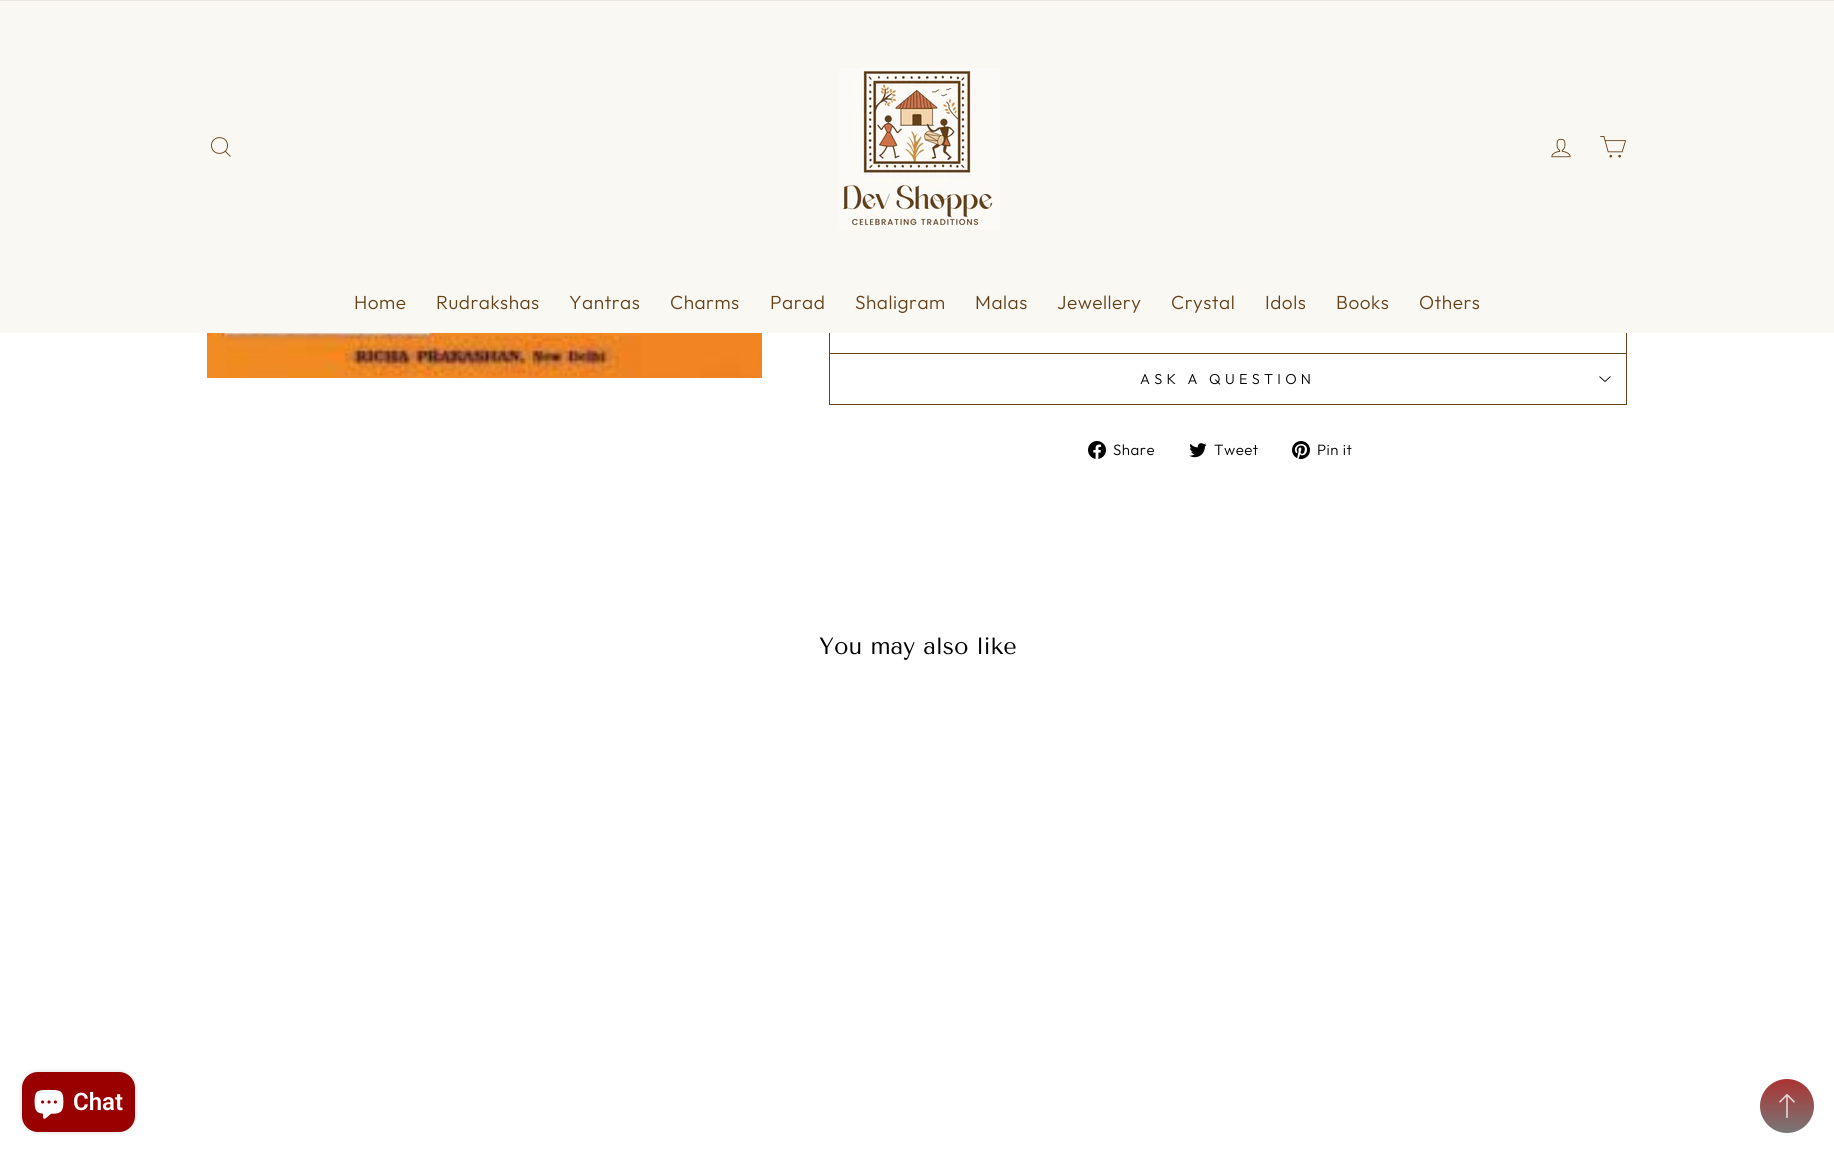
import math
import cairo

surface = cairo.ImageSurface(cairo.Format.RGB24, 1834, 1153)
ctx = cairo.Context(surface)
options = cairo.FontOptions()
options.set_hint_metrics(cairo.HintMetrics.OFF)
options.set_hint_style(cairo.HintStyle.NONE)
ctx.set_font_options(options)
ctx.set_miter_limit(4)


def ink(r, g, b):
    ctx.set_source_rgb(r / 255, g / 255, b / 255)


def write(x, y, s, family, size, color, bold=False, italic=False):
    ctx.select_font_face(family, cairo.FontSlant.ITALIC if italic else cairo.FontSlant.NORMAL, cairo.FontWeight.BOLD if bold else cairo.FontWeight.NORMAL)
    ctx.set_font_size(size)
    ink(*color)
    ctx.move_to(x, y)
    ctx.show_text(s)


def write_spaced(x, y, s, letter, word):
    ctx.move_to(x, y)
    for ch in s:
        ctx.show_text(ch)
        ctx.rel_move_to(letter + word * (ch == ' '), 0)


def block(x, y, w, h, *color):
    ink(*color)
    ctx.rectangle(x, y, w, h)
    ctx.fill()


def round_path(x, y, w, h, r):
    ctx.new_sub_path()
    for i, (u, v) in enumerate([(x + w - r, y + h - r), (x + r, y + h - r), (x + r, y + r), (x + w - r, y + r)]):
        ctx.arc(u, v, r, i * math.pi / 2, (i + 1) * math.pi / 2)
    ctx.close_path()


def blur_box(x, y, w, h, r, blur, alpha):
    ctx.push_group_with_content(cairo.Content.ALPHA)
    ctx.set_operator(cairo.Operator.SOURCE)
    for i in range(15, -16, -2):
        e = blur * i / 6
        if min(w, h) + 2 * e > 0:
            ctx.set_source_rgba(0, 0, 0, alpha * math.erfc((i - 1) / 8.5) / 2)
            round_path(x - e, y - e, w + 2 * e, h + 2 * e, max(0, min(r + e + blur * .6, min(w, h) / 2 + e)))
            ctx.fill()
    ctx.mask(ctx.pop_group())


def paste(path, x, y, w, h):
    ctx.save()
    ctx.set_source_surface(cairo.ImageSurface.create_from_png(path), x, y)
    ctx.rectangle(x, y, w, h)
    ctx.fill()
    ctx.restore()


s1 = dict(family="Tenor Sans", size=23.5, color=(0, 0, 0))
s2 = dict(family="Roboto SemiBold", size=24, color=(255, 255, 255))

ink(255, 255, 255)
ctx.paint()
block(0, 1, 1834, 332, 249, 248, 243)
block(0, 0, 1834, 1, 234, 230, 221)
ctx.new_path()
ctx.move_to(227.5, 145.5)
ctx.curve_to(227.5, 156, 211.5, 156, 211.5, 145.5)
ctx.curve_to(211.5, 135, 227.5, 135, 227.5, 145.5)
ctx.close_path()
ctx.move_to(230.5, 156.5)
ctx.line_to(225.5, 151.5)
ink(100, 65, 23)
ctx.set_line_width(0.9)
ctx.stroke()
paste("pic1.png", 839, 68, 161, 162)
paste("pic2.png", 1551, 138, 20, 20)
paste("pic3.png", 1600, 136, 27, 22)
ctx.select_font_face("Outfit Light")
ctx.set_font_size(19)
write_spaced(354, 309, "Home", 0.5, 0)
write_spaced(436, 309, "Rudrakshas", 0.5, 0)
write_spaced(569, 309, "Yantras", 0.5, 0)
write_spaced(670, 309, "Charms", 0.5, 0)
write_spaced(770, 309, "Parad", 0.5, 0)
write_spaced(855, 309, "Shaligram", 0.5, 0)
write_spaced(975, 309, "Malas", 0.5, 0)
write_spaced(1057, 309, "Jewellery", 0.5, 0)
write_spaced(1171, 309, "Crystal", 0.5, 0)
write_spaced(1265, 309, "Idols", 0.5, 0)
write_spaced(1336, 309, "Books", 0.5, 0)
write_spaced(1419, 309, "Others", 0.5, 0)
paste("pic4.png", 207, 333, 555, 45)
block(829, 353, 798, 1, 100, 65, 23)
block(1626, 333, 1, 20, 100, 65, 23)
block(829, 333, 1, 20, 100, 65, 23)
block(829, 404, 798, 1, 100, 65, 23)
block(1626, 354, 1, 50, 100, 65, 23)
block(829, 354, 1, 50, 100, 65, 23)
ctx.set_font_size(14.4)
ink(0, 0, 0)
write_spaced(1140, 384, "ASK A QUESTION", 4.25, 0)
ctx.new_path()
ctx.move_to(1599.5, 376.5)
ctx.line_to(1605, 381.5)
ctx.line_to(1610.5, 376.5)
ctx.stroke()
paste("pic5.png", 1088, 441, 18, 18)
ctx.set_font_size(15)
write_spaced(1113, 455, "Share", 0.5, 0)
paste("pic6.png", 1189, 443, 18, 15)
write_spaced(1214, 455, "Tweet", 0.5, 0)
paste("pic7.png", 1292, 441, 18, 18)
write_spaced(1317, 455, "Pin it", 0.5, 0)
write(819, 654, "You may also like", **s1)
ink(0, 0, 0)
blur_box(22, 1072, 113, 60, 16, 2.5, 0.15)
ink(153, 0, 0)
round_path(22, 1072, 113, 60, 16)
ctx.fill()
paste("pic8.png", 34, 1090, 30, 29)
write(73, 1110, "Chat", **s2)
gradient = cairo.LinearGradient(1787, 1079, 1787, 1133)
gradient.add_color_stop_rgba(0, 0.678, 0.2, 0.2, 1)
gradient.add_color_stop_rgba(1, 0.467, 0.467, 0.467, 1)
ctx.set_source(gradient)
ctx.new_path()
ctx.arc(1787, 1106, 27, 0, 2 * math.pi)
ctx.fill()
paste("pic9.png", 1779, 1094, 16, 24)
surface.write_to_png("screenshot.png")
